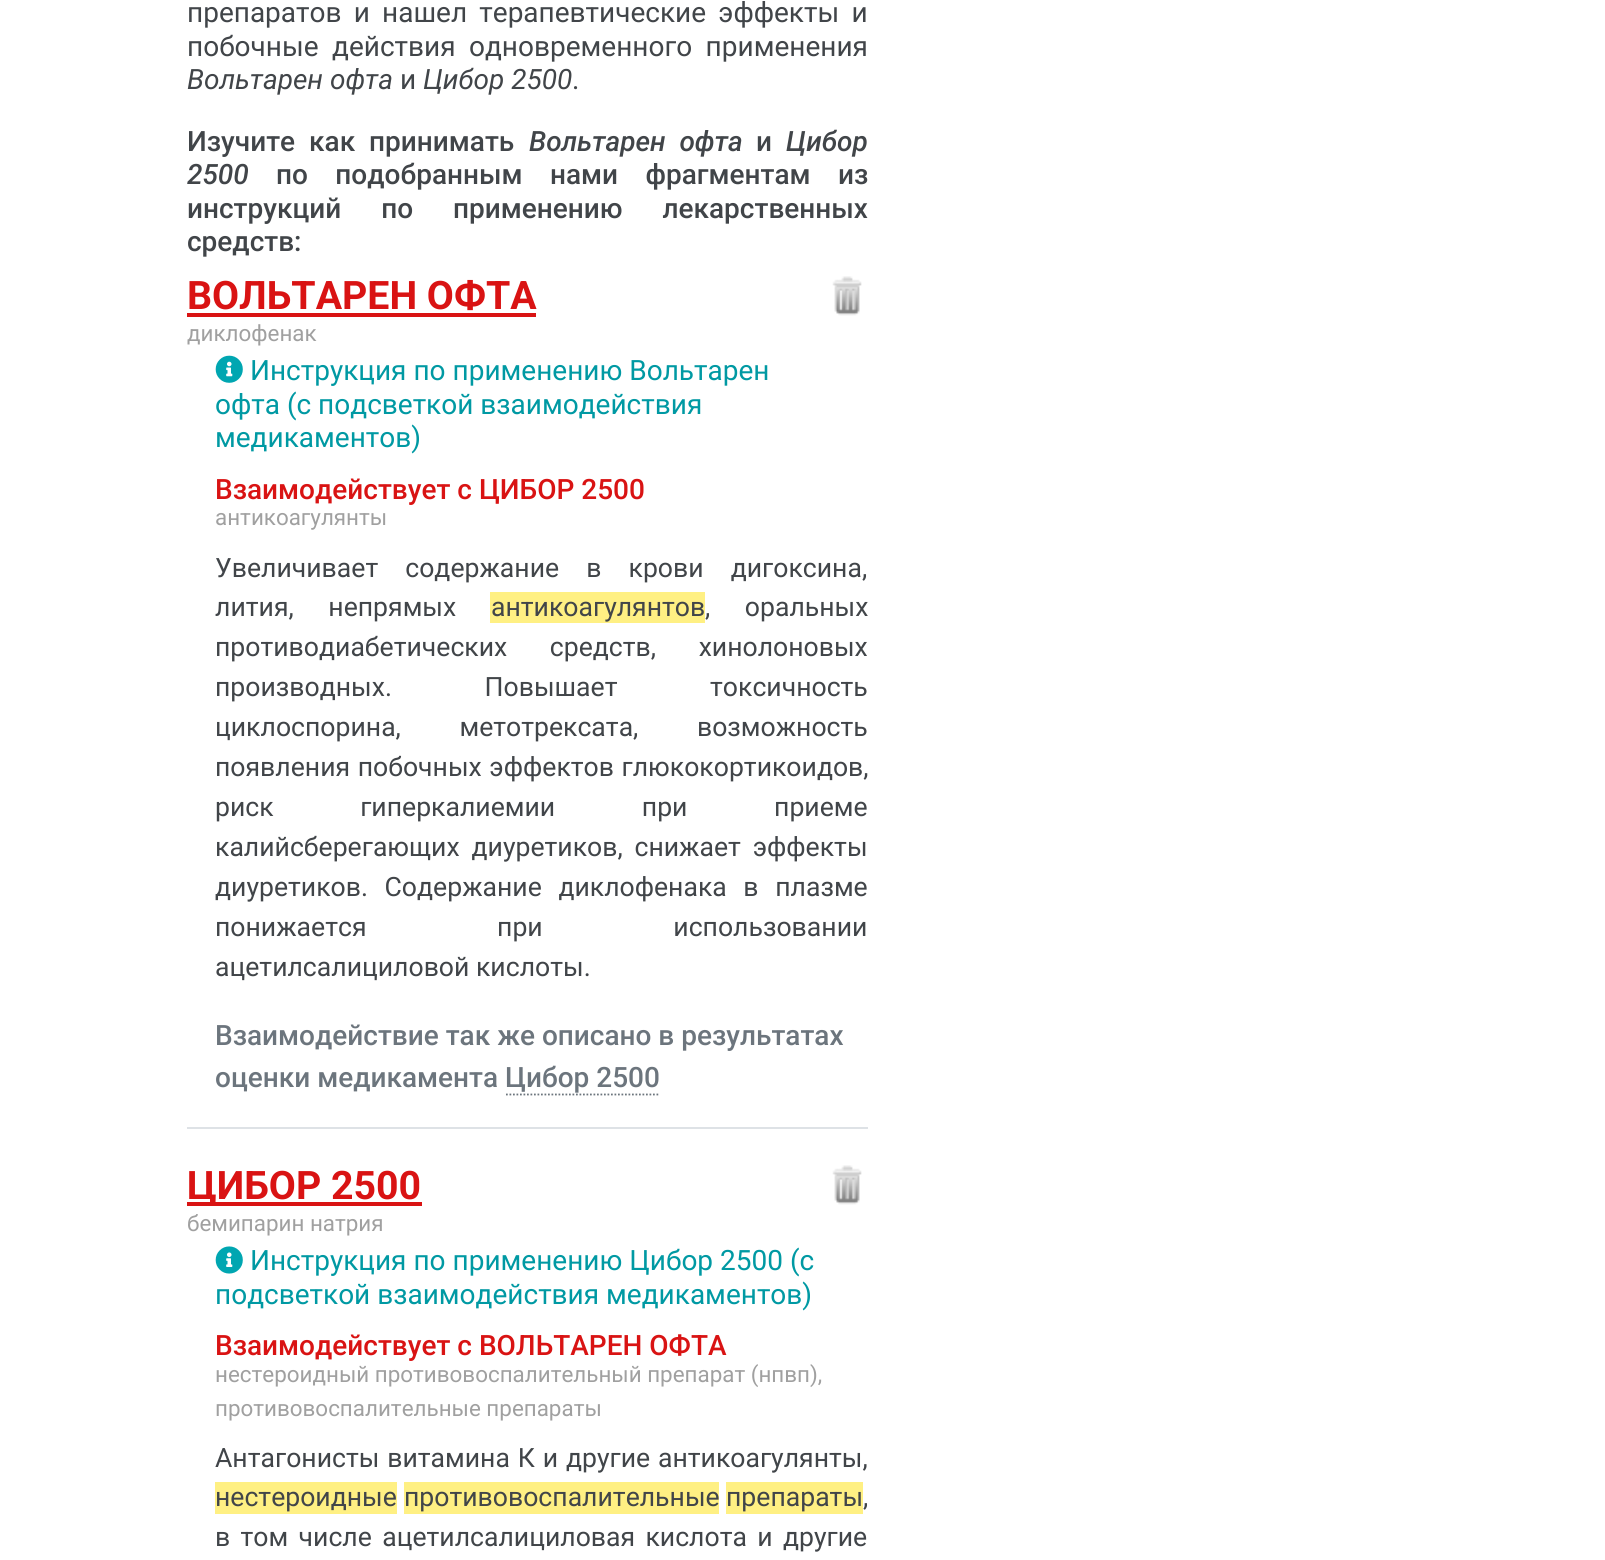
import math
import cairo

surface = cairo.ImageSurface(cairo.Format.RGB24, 1605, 1560)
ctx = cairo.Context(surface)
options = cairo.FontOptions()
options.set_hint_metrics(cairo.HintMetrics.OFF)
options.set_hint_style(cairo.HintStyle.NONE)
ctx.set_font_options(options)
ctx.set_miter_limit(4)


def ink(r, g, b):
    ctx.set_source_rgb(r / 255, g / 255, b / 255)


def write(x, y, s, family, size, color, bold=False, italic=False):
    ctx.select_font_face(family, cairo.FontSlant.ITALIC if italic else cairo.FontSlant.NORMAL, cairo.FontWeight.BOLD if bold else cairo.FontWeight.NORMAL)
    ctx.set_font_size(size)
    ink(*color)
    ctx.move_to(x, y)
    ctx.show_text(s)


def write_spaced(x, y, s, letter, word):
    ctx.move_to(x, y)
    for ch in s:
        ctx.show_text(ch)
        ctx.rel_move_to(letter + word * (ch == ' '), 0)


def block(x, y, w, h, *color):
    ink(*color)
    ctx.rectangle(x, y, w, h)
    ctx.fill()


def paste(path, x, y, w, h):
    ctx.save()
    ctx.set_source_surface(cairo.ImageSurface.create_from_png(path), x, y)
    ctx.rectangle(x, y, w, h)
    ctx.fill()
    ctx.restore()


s1 = dict(family="Roboto", size=28, color=(65, 69, 73), italic=True)
s2 = dict(family="Roboto", size=28, color=(65, 69, 73))
s3 = dict(family="Roboto Medium", size=28, color=(65, 69, 73))
s4 = dict(family="Roboto Medium", size=28, color=(65, 69, 73), italic=True)
s5 = dict(family="Roboto", size=39.25, color=(217, 19, 19), bold=True)
s6 = dict(family="Roboto", size=22.4, color=(160, 160, 160))
s7 = dict(family="Roboto", size=28, color=(0, 153, 163))
s8 = dict(family="Roboto Medium", size=28, color=(217, 19, 19))
s9 = dict(family="Roboto", size=26.6, color=(65, 69, 73))
s10 = dict(family="Roboto Medium", size=28, color=(108, 117, 125))

ink(255, 255, 255)
ctx.paint()
ctx.select_font_face("Roboto")
ctx.set_font_size(28)
ink(65, 69, 73)
write_spaced(187, 22, "препаратов и нашел терапевтические эффекты и", 0, 5.25)
write_spaced(187, 56, "побочные действия одновременного применения", 0, 6.5)
write(187, 89, "Вольтарен офта", **s1)
write(400, 89, "и", **s2)
write(423, 89, "Цибор 2500", **s1)
write(572, 89, ".", **s2)
ctx.select_font_face("Roboto Medium")
write_spaced(187, 151, "Изучите как принимать", 0, 7)
ctx.select_font_face("Roboto Medium", cairo.FontSlant.ITALIC)
write_spaced(529, 151, "Вольтарен офта", 0, 7)
write(756, 151, "и", **s3)
write(786, 151, "Цибор", **s4)
write(187, 184, "2500", **s4)
ctx.select_font_face("Roboto Medium")
write_spaced(276, 184, "по подобранным нами фрагментам из", 0, 20.5)
write_spaced(187, 218, "инструкций по применению лекарственных", 0, 33)
write(187, 251, "средств:", **s3)
block(187, 1127, 681, 2, 222, 226, 230)
write(187, 309, "ВОЛЬТАРЕН ОФТА", **s5)
block(187, 313, 349, 4, 217, 19, 19)
write(187, 341, "диклофенак", **s6)
paste("pic1.png", 215, 355, 28, 28)
write(250, 380, "Инструкция по применению Вольтарен", **s7)
write(215, 414, "офта (с подсветкой взаимодействия", **s7)
write(215, 447, "медикаментов)", **s7)
paste("pic2.png", 832, 276, 30, 40)
write(215, 499, "Взаимодействует с ЦИБОР 2500", **s8)
write(215, 525, "антикоагулянты", **s6)
ctx.set_font_size(26.6)
ink(65, 69, 73)
write_spaced(215, 577, "Увеличивает содержание в крови дигоксина,", 0, 20.5)
write_spaced(215, 616, "лития, непрямых", 0, 28)
block(490, 592, 215, 31, 255, 240, 131)
write(491, 616, "антикоагулянтов", **s9)
write_spaced(705, 616, ", оральных", 0, 28)
write_spaced(215, 656, "противодиабетических средств, хинолоновых", 0, 36)
write_spaced(215, 696, "производных. Повышает токсичность", 0, 86)
write_spaced(215, 736, "циклоспорина, метотрексата, возможность", 0, 52)
write_spaced(215, 776, "появления побочных эффектов глюкокортикоидов,", 0, 1)
write_spaced(215, 816, "риск гиперкалиемии при приеме", 0, 80)
write_spaced(215, 856, "калийсберегающих диуретиков, снижает эффекты", 0, 5.25)
write_spaced(215, 896, "диуретиков. Содержание диклофенака в плазме", 0, 10)
write_spaced(215, 936, "понижается при использовании", 0, 124)
write(215, 976, "ацетилсалициловой кислоты.", **s9)
write(215, 1045, "Взаимодействие так же описано в результатах", **s10)
write(215, 1087, "оценки медикамента Цибор 2500", **s10)
ctx.new_path()
ctx.move_to(506, 1094.5)
ctx.line_to(660, 1094.5)
ctx.set_line_width(1.8)
ctx.set_dash([1.75, 1.75])
ctx.stroke()
block(187, 1202, 235, 4, 217, 19, 19)
write(187, 1199, "ЦИБОР 2500", **s5)
write(187, 1231, "бемипарин натрия", **s6)
paste("pic3.png", 215, 1246, 28, 28)
write(250, 1270, "Инструкция по применению Цибор 2500 (с", **s7)
write(215, 1304, "подсветкой взаимодействия медикаментов)", **s7)
paste("pic2.png", 832, 1165, 30, 40)
write(215, 1355, "Взаимодействует с ВОЛЬТАРЕН ОФТА", **s8)
write(215, 1382, "нестероидный противовоспалительный препарат (нпвп),", **s6)
write(215, 1416, "противовоспалительные препараты", **s6)
ctx.set_font_size(26.6)
ink(65, 69, 73)
write_spaced(215, 1467, "Антагонисты витамина К и другие антикоагулянты,", 0, 1.25)
block(215, 1482, 182, 32, 255, 240, 131)
write(215, 1506, "нестероидные", **s9)
block(404, 1482, 315, 32, 255, 240, 131)
write(404, 1506, "противовоспалительные", **s9)
block(726, 1482, 137, 32, 255, 240, 131)
write(726, 1506, "препараты,", **s9)
write_spaced(215, 1546, "в том числе ацетилсалициловая кислота и другие", 0, 3.75)
surface.write_to_png("screenshot.png")
